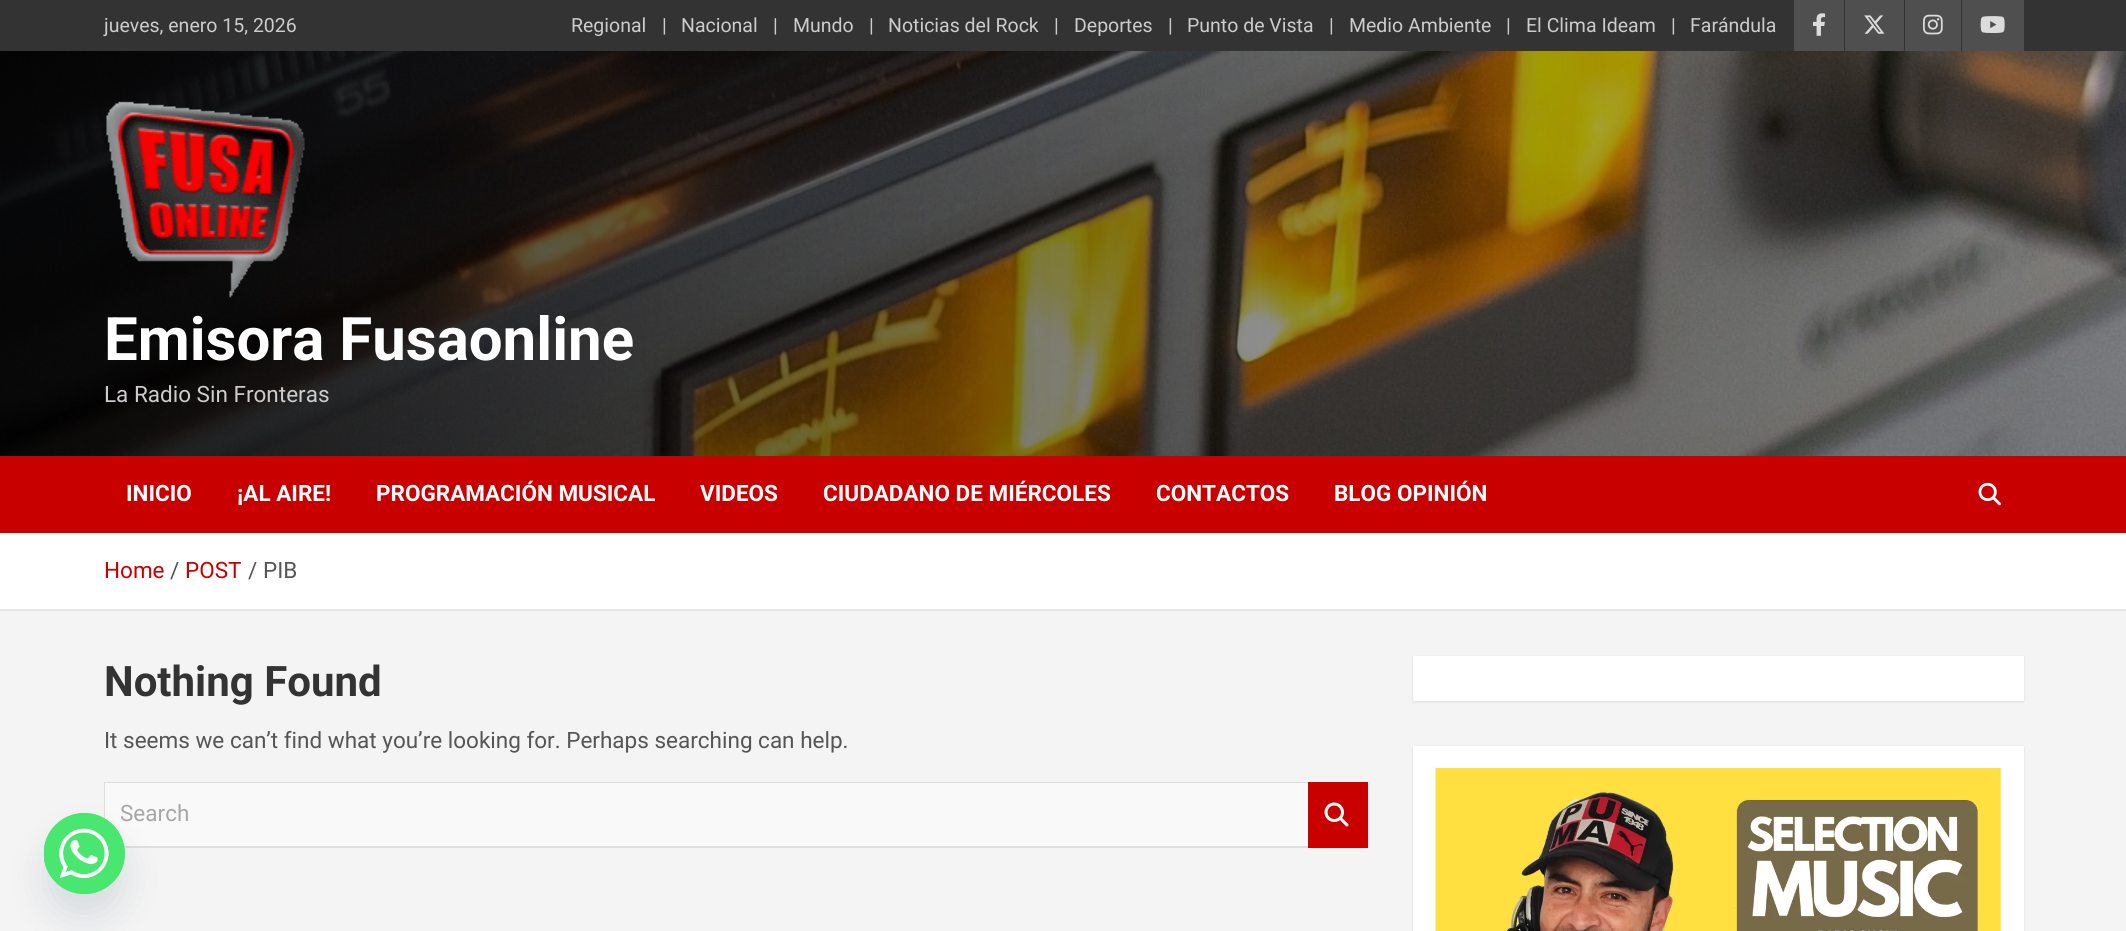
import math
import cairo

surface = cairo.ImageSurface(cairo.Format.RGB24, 2126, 931)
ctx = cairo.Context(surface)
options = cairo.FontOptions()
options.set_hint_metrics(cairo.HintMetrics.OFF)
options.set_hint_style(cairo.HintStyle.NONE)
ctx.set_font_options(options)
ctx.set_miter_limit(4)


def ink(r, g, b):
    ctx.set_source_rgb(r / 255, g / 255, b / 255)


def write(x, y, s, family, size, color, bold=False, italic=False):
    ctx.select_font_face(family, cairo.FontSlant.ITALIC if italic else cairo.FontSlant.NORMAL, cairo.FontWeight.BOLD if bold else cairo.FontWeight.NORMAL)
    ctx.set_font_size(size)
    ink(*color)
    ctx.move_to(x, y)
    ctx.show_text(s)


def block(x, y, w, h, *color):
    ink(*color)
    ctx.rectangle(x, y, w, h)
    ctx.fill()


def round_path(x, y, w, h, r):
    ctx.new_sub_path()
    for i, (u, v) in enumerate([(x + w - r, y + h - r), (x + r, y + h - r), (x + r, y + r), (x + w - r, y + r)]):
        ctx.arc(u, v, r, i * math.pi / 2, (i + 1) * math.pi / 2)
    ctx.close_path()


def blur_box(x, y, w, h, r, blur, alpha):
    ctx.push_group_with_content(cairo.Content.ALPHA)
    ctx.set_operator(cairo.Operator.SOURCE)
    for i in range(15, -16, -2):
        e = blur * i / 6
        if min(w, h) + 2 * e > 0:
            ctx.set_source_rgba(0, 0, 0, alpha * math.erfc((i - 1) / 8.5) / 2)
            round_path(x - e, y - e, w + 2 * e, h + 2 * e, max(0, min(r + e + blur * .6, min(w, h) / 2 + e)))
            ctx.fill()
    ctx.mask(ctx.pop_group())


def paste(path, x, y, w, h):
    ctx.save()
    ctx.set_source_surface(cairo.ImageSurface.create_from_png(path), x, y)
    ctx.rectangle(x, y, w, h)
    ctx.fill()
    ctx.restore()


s1 = dict(family="Roboto", size=19.5, color=(204, 204, 204))
s2 = dict(family="Roboto", size=60, color=(255, 255, 255), bold=True)
s3 = dict(family="Roboto", size=22.5, color=(204, 204, 204))
s4 = dict(family="Roboto", size=22.5, color=(255, 255, 255), bold=True)
s5 = dict(family="Roboto", size=22.5, color=(200, 0, 0))
s6 = dict(family="Roboto", size=22.5, color=(85, 85, 85))
s7 = dict(family="Roboto", size=42, color=(51, 51, 51), bold=True)
s8 = dict(family="Roboto", size=22.5, color=(167, 167, 167))

ink(244, 244, 244)
ctx.paint()
block(0, 0, 2126, 51, 51, 51, 51)
write(104, 32, "jueves, enero 15, 2026", **s1)
write(571, 32, "Regional", **s1)
write(662, 32, "|", **s1)
write(681, 32, "Nacional", **s1)
write(773, 32, "|", **s1)
write(793, 32, "Mundo", **s1)
write(869, 32, "|", **s1)
write(888, 32, "Noticias del Rock", **s1)
write(1054, 32, "|", **s1)
write(1074, 32, "Deportes", **s1)
write(1168, 32, "|", **s1)
write(1187, 32, "Punto de Vista", **s1)
write(1329, 32, "|", **s1)
write(1349, 32, "Medio Ambiente", **s1)
write(1506, 32, "|", **s1)
write(1526, 32, "El Clima Ideam", **s1)
write(1671, 32, "|", **s1)
write(1690, 32, "Farándula", **s1)
block(1794, 0, 50, 51, 79, 79, 79)
paste("pic1.png", 1813, 13, 13, 23)
block(1845, 0, 59, 51, 79, 79, 79)
paste("pic2.png", 1864, 15, 21, 19)
block(1905, 0, 56, 51, 79, 79, 79)
paste("pic3.png", 1923, 14, 20, 21)
block(1962, 0, 62, 51, 79, 79, 79)
paste("pic4.png", 1980, 16, 25, 17)
paste("pic5.png", 0, 51, 2126, 405)
paste("pic6.png", 106, 101, 199, 197)
write(104, 360, "Emisora Fusaonline", **s2)
write(104, 402, "La Radio Sin Fronteras", **s3)
block(0, 456, 2126, 77, 200, 0, 0)
write(126, 501, "INICIO", **s4)
write(237, 501, "¡AL AIRE!", **s4)
write(376, 501, "PROGRAMACIÓN MUSICAL", **s4)
write(700, 501, "VIDEOS", **s4)
write(823, 501, "CIUDADANO DE MIÉRCOLES", **s4)
write(1156, 501, "CONTACTOS", **s4)
write(1334, 501, "BLOG OPINIÓN", **s4)
paste("pic7.png", 1978, 482, 23, 24)
block(0, 533, 2126, 76, 255, 255, 255)
block(0, 609, 2126, 2, 230, 230, 230)
write(104, 578, "Home", **s5)
write(170, 578, "/", **s6)
write(185, 578, "POST", **s5)
write(248, 578, "/", **s6)
write(263, 578, "PIB", **s6)
write(104, 696, "Nothing Found", **s7)
write(104, 748, "It seems we can’t find what you’re looking for. Perhaps searching can help.", **s6)
block(105, 783, 1203, 63, 249, 249, 249)
ink(222, 222, 222)
ctx.new_path()
ctx.move_to(104, 782)
ctx.line_to(1308, 782)
ctx.line_to(1308, 783)
ctx.line_to(105, 783)
ctx.close_path()
ctx.fill()
ctx.new_path()
ctx.move_to(1308, 848)
ctx.line_to(104, 848)
ctx.line_to(105, 846)
ctx.line_to(1308, 846)
ctx.close_path()
ctx.fill()
ctx.set_source_rgba(0, 0, 0, 0.09)
ctx.new_path()
ctx.move_to(104, 848)
ctx.line_to(104, 782)
ctx.line_to(105, 783)
ctx.line_to(105, 846)
ctx.close_path()
ctx.fill()
write(120, 821, "Search", **s8)
block(1308, 782, 60, 66, 200, 0, 0)
paste("pic8.png", 1324, 802, 25, 25)
ink(0, 0, 0)
blur_box(1413, 657, 611, 45, 0, 1, 0.1)
block(1413, 656, 611, 45, 255, 255, 255)
ink(0, 0, 0)
blur_box(1413, 747, 611, 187, 0, 1, 0.1)
block(1413, 746, 611, 185, 255, 255, 255)
paste("pic9.png", 1435, 768, 566, 163)
ink(73, 104, 126)
blur_box(44, 837, 81, 81, 40.5, 18, 0.16)
ink(73, 230, 112)
ctx.arc(84.5, 853.5, 40.5, 0, 2 * math.pi)
ctx.fill()
paste("pic10.png", 44, 813, 81, 81)
surface.write_to_png("screenshot.png")
